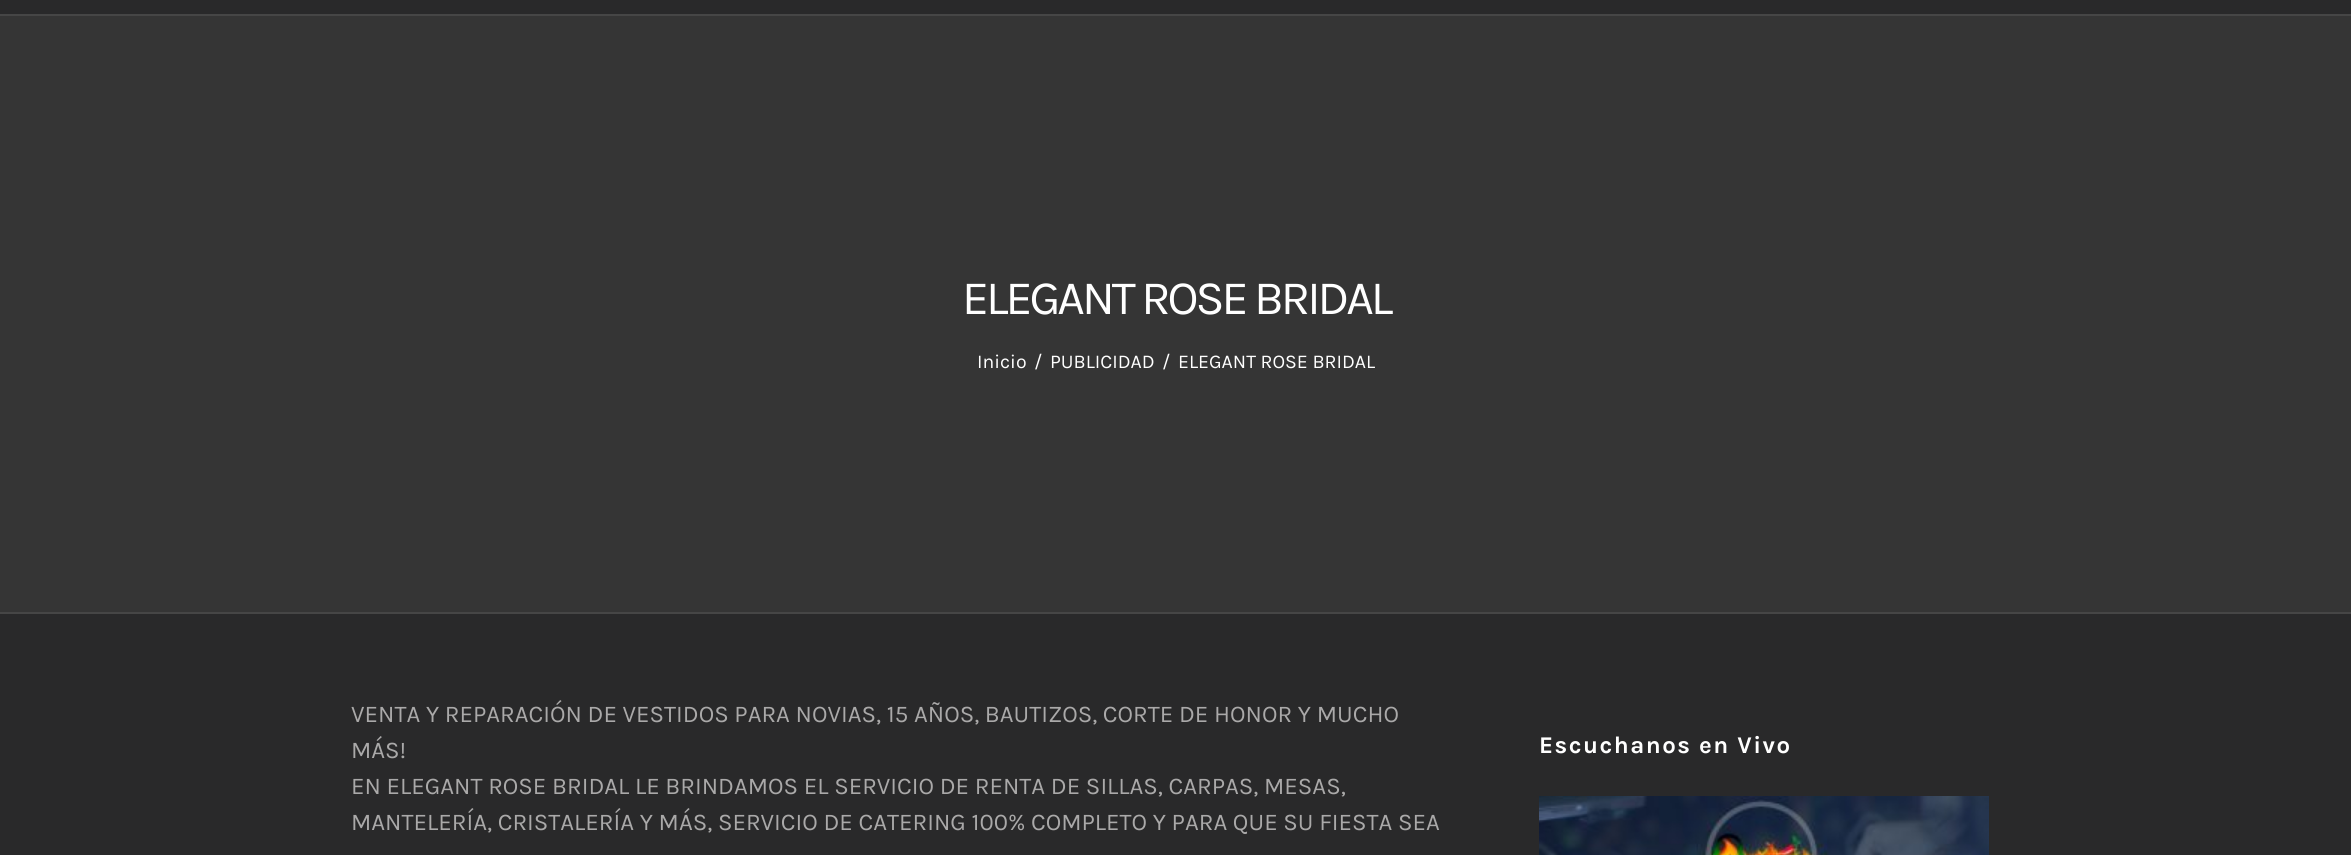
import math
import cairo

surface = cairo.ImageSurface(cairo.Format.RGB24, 2351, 855)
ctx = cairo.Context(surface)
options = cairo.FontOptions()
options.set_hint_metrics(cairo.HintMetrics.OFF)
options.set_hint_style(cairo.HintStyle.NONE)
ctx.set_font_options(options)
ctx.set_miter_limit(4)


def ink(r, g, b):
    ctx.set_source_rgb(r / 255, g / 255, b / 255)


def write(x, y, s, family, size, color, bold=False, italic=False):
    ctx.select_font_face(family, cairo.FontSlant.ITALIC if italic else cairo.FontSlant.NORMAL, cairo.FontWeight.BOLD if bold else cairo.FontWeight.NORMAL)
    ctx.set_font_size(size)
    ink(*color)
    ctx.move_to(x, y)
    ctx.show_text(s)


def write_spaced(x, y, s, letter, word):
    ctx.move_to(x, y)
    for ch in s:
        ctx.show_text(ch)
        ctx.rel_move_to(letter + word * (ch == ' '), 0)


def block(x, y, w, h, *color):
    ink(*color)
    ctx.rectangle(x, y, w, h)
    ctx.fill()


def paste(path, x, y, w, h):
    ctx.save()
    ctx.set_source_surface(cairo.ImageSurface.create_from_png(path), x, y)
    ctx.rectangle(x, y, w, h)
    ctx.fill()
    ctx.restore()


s1 = dict(family="Karla", size=19.5, color=(255, 255, 255))
s2 = dict(family="Karla", size=24, color=(170, 169, 169))

ink(41, 41, 42)
ctx.paint()
block(0, 16, 2351, 596, 53, 53, 53)
block(0, 14, 2351, 2, 70, 70, 70)
block(0, 612, 2351, 2, 70, 70, 70)
ctx.select_font_face("Karla")
ctx.set_font_size(48)
ink(255, 255, 255)
write_spaced(962, 314, "ELEGANT ROSE BRIDAL", -3, 0)
write(977, 368, "Inicio", **s1)
write(1034, 368, "/", **s1)
write(1050, 368, "PUBLICIDAD", **s1)
write(1162, 368, "/", **s1)
write(1178, 368, "ELEGANT ROSE BRIDAL", **s1)
write(351, 722, "VENTA Y REPARACIÓN DE VESTIDOS PARA NOVIAS, 15 AÑOS, BAUTIZOS, CORTE DE HONOR Y MUCHO", **s2)
write(351, 758, "MÁS!", **s2)
write(351, 794, "EN ELEGANT ROSE BRIDAL LE BRINDAMOS EL SERVICIO DE RENTA DE SILLAS, CARPAS, MESAS,", **s2)
write(351, 830, "MANTELERÍA, CRISTALERÍA Y MÁS, SERVICIO DE CATERING 100% COMPLETO Y PARA QUE SU FIESTA SEA", **s2)
ctx.select_font_face("Karla", cairo.FontSlant.NORMAL, cairo.FontWeight.BOLD)
ink(255, 255, 255)
write_spaced(1539, 753, "Escuchanos en Vivo", 1.5, 0)
paste("pic1.png", 1539, 796, 450, 59)
surface.write_to_png("screenshot.png")
